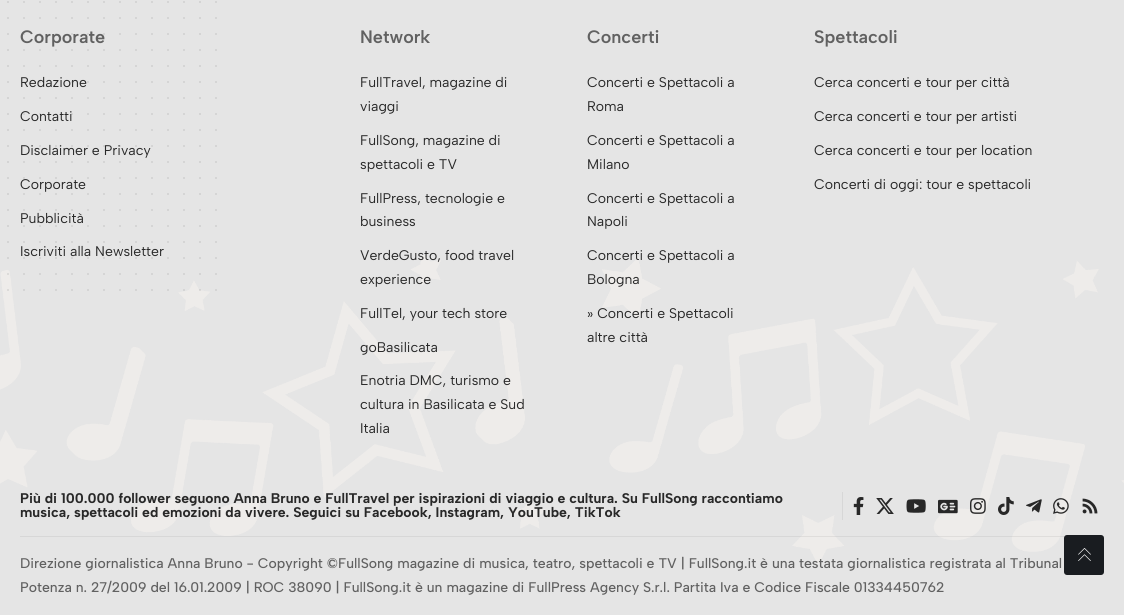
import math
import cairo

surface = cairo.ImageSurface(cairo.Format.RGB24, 1124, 615)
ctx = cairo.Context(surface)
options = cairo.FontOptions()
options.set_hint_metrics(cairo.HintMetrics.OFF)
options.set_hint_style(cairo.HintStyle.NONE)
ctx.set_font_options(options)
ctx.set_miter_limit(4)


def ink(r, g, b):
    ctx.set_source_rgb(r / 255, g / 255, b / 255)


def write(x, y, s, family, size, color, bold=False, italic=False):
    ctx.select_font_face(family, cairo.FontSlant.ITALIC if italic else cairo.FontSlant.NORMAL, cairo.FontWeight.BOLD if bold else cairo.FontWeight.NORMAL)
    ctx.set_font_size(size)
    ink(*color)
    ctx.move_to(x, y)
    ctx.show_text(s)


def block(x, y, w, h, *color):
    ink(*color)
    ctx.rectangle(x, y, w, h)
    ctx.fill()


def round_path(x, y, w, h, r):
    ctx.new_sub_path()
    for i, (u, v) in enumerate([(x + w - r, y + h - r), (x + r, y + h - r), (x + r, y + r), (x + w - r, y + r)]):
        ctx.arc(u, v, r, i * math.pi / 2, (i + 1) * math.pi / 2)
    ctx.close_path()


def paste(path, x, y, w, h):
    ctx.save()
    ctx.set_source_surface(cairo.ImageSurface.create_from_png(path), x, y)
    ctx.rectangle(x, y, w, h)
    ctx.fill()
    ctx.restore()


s1 = dict(family="Albert Sans SemiBold", size=18, color=(97, 97, 97))
s2 = dict(family="Albert Sans", size=14, color=(40, 40, 40))
s3 = dict(family="Albert Sans", size=14, color=(40, 40, 40), bold=True)
s4 = dict(family="Albert Sans Medium", size=14, color=(97, 97, 97))

ink(229, 229, 229)
ctx.paint()
paste("pic1.png", 0, 254, 1124, 311)
ctx.new_path()
ctx.move_to(8, -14)
ctx.line_to(8, 290.2)
ctx.set_source_rgba(0.157, 0.157, 0.157, 0.2)
ctx.set_line_width(1.5)
ctx.set_line_cap(cairo.LineCap.ROUND)
ctx.set_dash([0, 16])
ctx.stroke()
ctx.new_path()
ctx.move_to(24, -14)
ctx.line_to(24, 290.2)
ink(191, 191, 191)
ctx.stroke()
ctx.new_path()
ctx.move_to(40, -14)
ctx.line_to(40, 290.2)
ctx.stroke()
ctx.new_path()
ctx.move_to(56, -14)
ctx.line_to(56, 290.2)
ctx.stroke()
ctx.new_path()
ctx.move_to(72, -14)
ctx.line_to(72, 290.2)
ctx.stroke()
ctx.new_path()
ctx.move_to(88, -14)
ctx.line_to(88, 290.2)
ctx.stroke()
ctx.new_path()
ctx.move_to(104, -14)
ctx.line_to(104, 290.2)
ctx.stroke()
ctx.new_path()
ctx.move_to(120, -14)
ctx.line_to(120, 290.2)
ctx.stroke()
ctx.new_path()
ctx.move_to(136, -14)
ctx.line_to(136, 290.2)
ctx.stroke()
ctx.new_path()
ctx.move_to(152, -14)
ctx.line_to(152, 290.2)
ctx.stroke()
ctx.new_path()
ctx.move_to(168, -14)
ctx.line_to(168, 290.2)
ctx.stroke()
ctx.new_path()
ctx.move_to(184, -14)
ctx.line_to(184, 290.2)
ctx.stroke()
ctx.new_path()
ctx.move_to(200, -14)
ctx.line_to(200, 290.2)
ctx.set_source_rgba(0.157, 0.157, 0.157, 0.2)
ctx.stroke()
ctx.new_path()
ctx.move_to(216, -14)
ctx.line_to(216, 290.2)
ink(191, 191, 191)
ctx.stroke()
write(20, 43, "Corporate", **s1)
write(20, 87, "Redazione", **s2)
write(20, 121, "Contatti", **s2)
write(20, 155, "Disclaimer e Privacy", **s2)
write(20, 189, "Corporate", **s2)
write(20, 223, "Pubblicità", **s2)
write(20, 256, "Iscriviti alla Newsletter", **s2)
write(360, 43, "Network", **s1)
write(360, 87, "FullTravel, magazine di", **s2)
write(360, 111, "viaggi", **s2)
write(360, 145, "FullSong, magazine di", **s2)
write(360, 169, "spettacoli e TV", **s2)
write(360, 203, "FullPress, tecnologie e", **s2)
write(360, 226, "business", **s2)
write(360, 260, "VerdeGusto, food travel", **s2)
write(360, 284, "experience", **s2)
write(360, 318, "FullTel, your tech store", **s2)
write(360, 352, "goBasilicata", **s2)
write(360, 385, "Enotria DMC, turismo e", **s2)
write(360, 409, "cultura in Basilicata e Sud", **s2)
write(360, 433, "Italia", **s2)
write(587, 43, "Concerti", **s1)
write(587, 87, "Concerti e Spettacoli a", **s2)
write(587, 111, "Roma", **s2)
write(587, 145, "Concerti e Spettacoli a", **s2)
write(587, 169, "Milano", **s2)
write(587, 203, "Concerti e Spettacoli a", **s2)
write(587, 226, "Napoli", **s2)
write(587, 260, "Concerti e Spettacoli a", **s2)
write(587, 284, "Bologna", **s2)
write(587, 318, "» Concerti e Spettacoli", **s2)
write(587, 342, "altre città", **s2)
write(814, 43, "Spettacoli", **s1)
write(814, 87, "Cerca concerti e tour per città", **s2)
write(814, 121, "Cerca concerti e tour per artisti", **s2)
write(814, 155, "Cerca concerti e tour per location", **s2)
write(814, 189, "Concerti di oggi: tour e spettacoli", **s2)
block(842, 492, 1, 28, 215, 215, 215)
write(20, 503, "Più di 100.000 follower seguono Anna Bruno e FullTravel per ispirazioni di viaggio e cultura. Su FullSong raccontiamo", **s3)
write(20, 517, "musica, spettacoli ed emozioni da vivere. Seguici su Facebook, Instagram, YouTube, TikTok", **s3)
paste("pic2.png", 853, 497, 11, 18)
paste("pic3.png", 876, 498, 18, 16)
paste("pic4.png", 906, 499, 20, 14)
paste("pic5.png", 938, 499, 20, 15)
paste("pic6.png", 970, 498, 16, 16)
paste("pic7.png", 998, 497, 16, 18)
paste("pic8.png", 1026, 499, 16, 14)
paste("pic9.png", 1053, 498, 16, 16)
paste("pic10.png", 1082, 498, 16, 16)
ctx.set_source_rgba(0.533, 0.533, 0.533, 0.15)
ctx.rectangle(20, 536, 1084, 1)
ctx.fill()
write(20, 568, "Direzione giornalistica Anna Bruno - Copyright ©FullSong magazine di musica, teatro, spettacoli e TV | FullSong.it è una testata giornalistica registrata al Tribunal", **s4)
write(20, 592, "Potenza n. 27/2009 del 16.01.2009 | ROC 38090 | FullSong.it è un magazine di FullPress Agency S.r.l. Partita Iva e Codice Fiscale 01334450762", **s4)
ink(25, 28, 32)
round_path(1064, 535, 40, 40, 3)
ctx.fill()
paste("pic11.png", 1078, 548, 13, 13)
surface.write_to_png("screenshot.png")
